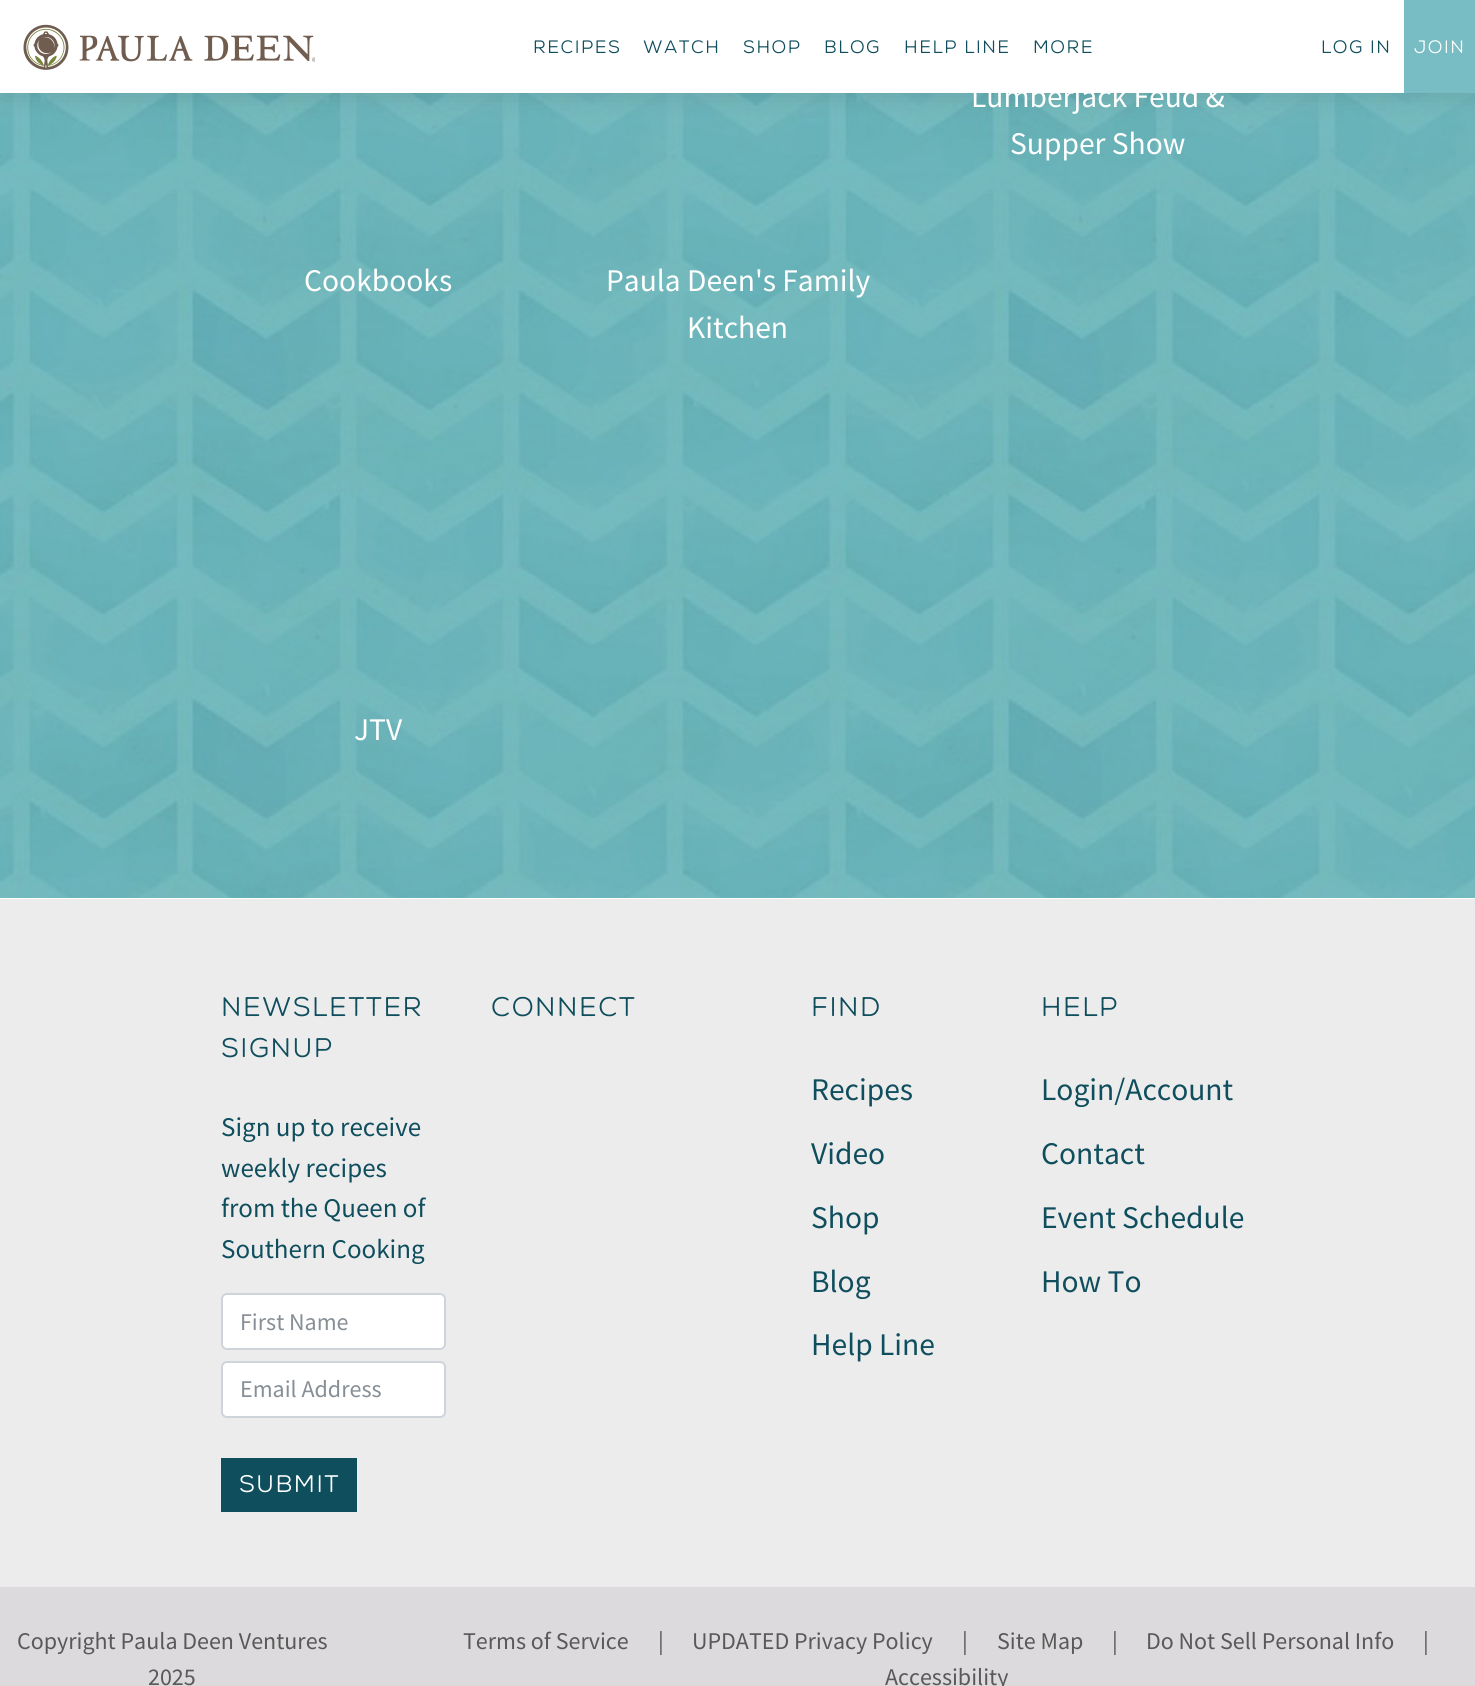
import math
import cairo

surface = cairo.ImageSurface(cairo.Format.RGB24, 1475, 1686)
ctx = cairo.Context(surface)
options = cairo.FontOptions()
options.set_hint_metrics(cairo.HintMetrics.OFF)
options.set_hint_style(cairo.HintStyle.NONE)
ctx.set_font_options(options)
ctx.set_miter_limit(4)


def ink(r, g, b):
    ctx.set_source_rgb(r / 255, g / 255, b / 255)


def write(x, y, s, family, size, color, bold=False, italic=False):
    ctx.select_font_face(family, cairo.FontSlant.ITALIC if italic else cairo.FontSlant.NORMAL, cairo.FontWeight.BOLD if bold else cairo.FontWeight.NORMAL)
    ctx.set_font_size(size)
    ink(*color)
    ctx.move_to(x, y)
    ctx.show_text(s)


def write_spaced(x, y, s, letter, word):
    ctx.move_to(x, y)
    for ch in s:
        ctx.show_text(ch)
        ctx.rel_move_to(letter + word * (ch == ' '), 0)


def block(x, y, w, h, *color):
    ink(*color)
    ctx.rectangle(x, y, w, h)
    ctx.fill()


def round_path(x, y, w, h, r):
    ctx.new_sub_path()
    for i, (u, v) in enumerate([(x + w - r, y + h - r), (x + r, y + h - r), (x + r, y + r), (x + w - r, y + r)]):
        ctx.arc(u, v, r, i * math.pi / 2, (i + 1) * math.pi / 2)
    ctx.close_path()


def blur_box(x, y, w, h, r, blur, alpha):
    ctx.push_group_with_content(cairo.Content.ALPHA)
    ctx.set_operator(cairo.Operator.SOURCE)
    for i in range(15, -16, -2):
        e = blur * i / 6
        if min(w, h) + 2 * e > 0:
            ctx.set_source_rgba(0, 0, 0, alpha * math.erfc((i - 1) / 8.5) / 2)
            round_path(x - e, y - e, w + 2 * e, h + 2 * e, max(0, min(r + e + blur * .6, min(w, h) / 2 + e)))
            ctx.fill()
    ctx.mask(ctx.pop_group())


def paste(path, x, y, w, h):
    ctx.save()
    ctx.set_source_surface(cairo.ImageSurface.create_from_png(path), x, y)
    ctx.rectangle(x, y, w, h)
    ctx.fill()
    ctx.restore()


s1 = dict(family="Source Sans Pro", size=31.5, color=(255, 255, 255))
s2 = dict(family="Source Sans Pro", size=27, color=(15, 78, 93))
s3 = dict(family="Source Sans Pro", size=24, color=(134, 142, 150))
s4 = dict(family="Source Sans Pro", size=31.5, color=(15, 78, 93))
s5 = dict(family="Source Sans Pro", size=24, color=(89, 89, 89))

ink(255, 255, 255)
ctx.paint()
paste("pic2.png", 0, 93, 1475, 805)
ink(21, 28, 31)
blur_box(0, 3, 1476, 93, 0, 12, 0.13)
block(0, 0, 1404, 93, 255, 255, 255)
paste("pic1.png", 23, 24, 292, 46)
ctx.select_font_face("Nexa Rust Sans")
ctx.set_font_size(18)
ink(15, 78, 93)
write_spaced(533, 53, "Recipes", 1.5, 0)
write_spaced(643, 53, "Watch", 1.5, 0)
write_spaced(743, 53, "Shop", 1.5, 0)
write_spaced(824, 53, "Blog", 1.5, 0)
write_spaced(904, 53, "Help Line", 1.5, 0)
write_spaced(1033, 53, "More", 1.5, 0)
write_spaced(1321, 53, "Log In", 1.5, 0)
block(1404, 0, 71, 93, 120, 189, 195)
ink(255, 255, 255)
write_spaced(1414, 53, "Join", 1.5, 0)
write(971, 107, "Lumberjack Feud &", **s1)
write(1010, 154, "Supper Show", **s1)
write(304, 291, "Cookbooks", **s1)
write(606, 291, "Paula Deen's Family", **s1)
write(687, 338, "Kitchen", **s1)
write(354, 740, "JTV", **s1)
block(0, 899, 1475, 688, 237, 236, 237)
ctx.select_font_face("Nexa Rust Sans")
ctx.set_font_size(27)
ink(15, 78, 93)
write_spaced(221, 1016, "NEWSLETTER", 1.5, 0)
write_spaced(221, 1057, "SIGNUP", 1.5, 0)
write(221, 1136, "Sign up to receive", **s2)
write(221, 1177, "weekly recipes", **s2)
write(221, 1217, "from the Queen of", **s2)
write(221, 1258, "Southern Cooking", **s2)
ink(255, 255, 255)
round_path(222, 1294, 223, 55, 5)
ctx.fill_preserve()
ink(206, 212, 218)
ctx.stroke()
write(240, 1330, "First Name", **s3)
ink(255, 255, 255)
round_path(222, 1362, 223, 55, 5)
ctx.fill_preserve()
ink(206, 212, 218)
ctx.stroke()
write(240, 1397, "Email Address", **s3)
block(221, 1458, 136, 54, 15, 78, 93)
ctx.select_font_face("Nexa Rust Sans")
ink(255, 255, 255)
write_spaced(239, 1492, "SUBMIT", 1.5, 0)
ctx.set_font_size(27)
ink(15, 78, 93)
write_spaced(491, 1016, "CONNECT", 1.5, 0)
write_spaced(811, 1016, "FIND", 1.5, 0)
write(811, 1100, "Recipes", **s4)
write(811, 1164, "Video", **s4)
write(811, 1228, "Shop", **s4)
write(811, 1292, "Blog", **s4)
write(811, 1355, "Help Line", **s4)
ctx.select_font_face("Nexa Rust Sans")
ctx.set_font_size(27)
write_spaced(1041, 1016, "HELP", 1.5, 0)
write(1041, 1100, "Login/Account", **s4)
write(1041, 1164, "Contact", **s4)
write(1041, 1228, "Event Schedule", **s4)
write(1041, 1292, "How To", **s4)
block(0, 1587, 1475, 99, 220, 218, 220)
write(17, 1649, "Copyright Paula Deen Ventures", **s5)
write(148, 1685, "2025", **s5)
write(463, 1649, "Terms of Service", **s5)
write(658, 1649, "|", **s5)
write(692, 1649, "UPDATED Privacy Policy", **s5)
write(962, 1649, "|", **s5)
write(997, 1649, "Site Map", **s5)
write(1112, 1649, "|", **s5)
write(1146, 1649, "Do Not Sell Personal Info", **s5)
write(1423, 1649, "|", **s5)
write(885, 1685, "Accessibility", **s5)
surface.write_to_png("screenshot.png")
